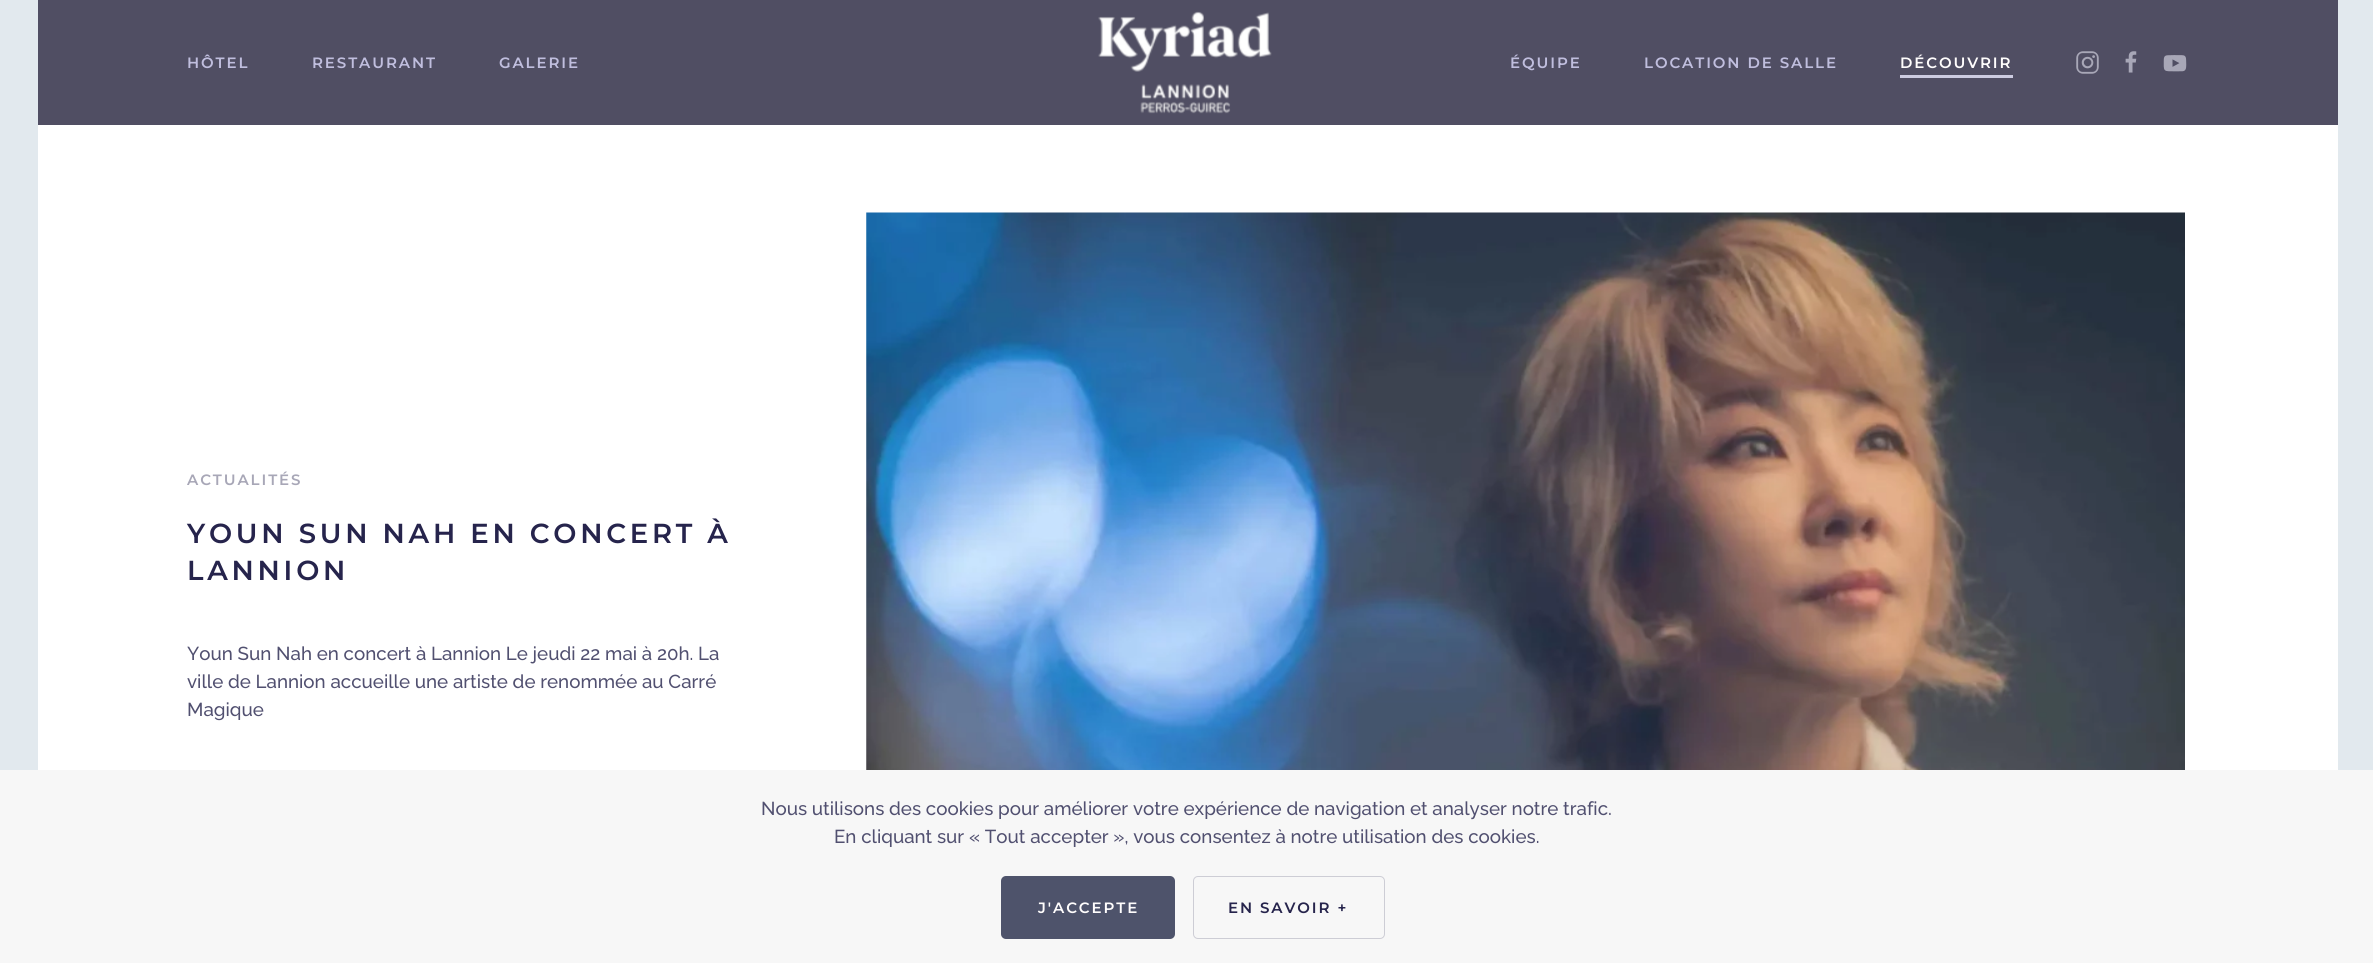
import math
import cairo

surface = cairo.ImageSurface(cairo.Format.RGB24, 2373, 963)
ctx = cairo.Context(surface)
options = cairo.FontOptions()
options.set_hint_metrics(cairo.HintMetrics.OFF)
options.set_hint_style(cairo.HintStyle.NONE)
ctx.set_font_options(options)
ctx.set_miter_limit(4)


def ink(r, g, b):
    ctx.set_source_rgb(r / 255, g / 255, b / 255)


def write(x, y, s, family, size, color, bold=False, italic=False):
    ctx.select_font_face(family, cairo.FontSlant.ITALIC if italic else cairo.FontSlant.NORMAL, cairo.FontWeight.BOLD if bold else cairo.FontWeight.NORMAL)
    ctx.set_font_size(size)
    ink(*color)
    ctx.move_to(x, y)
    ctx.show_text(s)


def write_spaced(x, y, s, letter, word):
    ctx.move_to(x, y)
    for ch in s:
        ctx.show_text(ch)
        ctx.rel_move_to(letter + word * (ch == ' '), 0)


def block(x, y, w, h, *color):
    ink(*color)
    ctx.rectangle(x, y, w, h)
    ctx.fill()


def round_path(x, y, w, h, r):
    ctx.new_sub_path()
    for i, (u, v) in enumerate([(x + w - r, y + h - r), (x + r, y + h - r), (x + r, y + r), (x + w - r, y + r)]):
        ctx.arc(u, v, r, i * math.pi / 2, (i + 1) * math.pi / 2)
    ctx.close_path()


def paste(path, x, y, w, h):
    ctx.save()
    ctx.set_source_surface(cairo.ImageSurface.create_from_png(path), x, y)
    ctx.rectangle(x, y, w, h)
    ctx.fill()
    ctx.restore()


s1 = dict(family="Raleway Thin", size=18.75, color=(81, 80, 112))

ink(226, 233, 238)
ctx.paint()
block(38, 125, 2300, 645, 255, 255, 255)
block(38, 0, 2300, 125, 80, 78, 99)
ctx.select_font_face("Montserrat Thin")
ctx.set_font_size(15)
ink(192, 190, 222)
write_spaced(187, 68, "HÔTEL", 1.9, 0)
write_spaced(312, 68, "RESTAURANT", 1.9, 0)
write_spaced(499, 68, "GALERIE", 1.9, 0)
paste("pic1.png", 1098, 11, 174, 103)
write_spaced(1510, 68, "ÉQUIPE", 1.9, 0)
write_spaced(1644, 68, "LOCATION DE SALLE", 1.9, 0)
ink(255, 253, 253)
write_spaced(1900, 68, "DÉCOUVRIR", 1.9, 0)
block(1900, 75, 113, 3, 205, 204, 225)
paste("pic2.png", 2076, 51, 23, 23)
paste("pic3.png", 2125, 51, 12, 22)
paste("pic4.png", 2163, 55, 24, 17)
ink(168, 167, 183)
write_spaced(187, 485, "ACTUALITÉS", 1.9, 0)
ctx.set_font_size(27.5)
ink(38, 36, 76)
write_spaced(187, 543, "YOUN SUN NAH EN CONCERT À", 3.75, 0)
write_spaced(187, 580, "LANNION", 3.75, 0)
write(187, 660, "Youn Sun Nah en concert à Lannion Le jeudi 22 mai à 20h. La", **s1)
write(187, 688, "ville de Lannion accueille une artiste de renommée au Carré", **s1)
write(187, 716, "Magique", **s1)
paste("pic5.png", 866, 212, 1319, 558)
block(0, 770, 2373, 193, 247, 247, 247)
write(761, 815, "Nous utilisons des cookies pour améliorer votre expérience de navigation et analyser notre trafic.", **s1)
write(834, 843, "En cliquant sur « Tout accepter », vous consentez à notre utilisation des cookies.", **s1)
ink(78, 83, 107)
round_path(1001, 876, 174, 63, 5)
ctx.fill()
ctx.select_font_face("Montserrat Thin")
ctx.set_font_size(15)
ink(255, 253, 253)
write_spaced(1038, 913, "J'ACCEPTE", 1.9, 0)
round_path(1193.5, 876.5, 191, 62, 4.5)
ink(205, 205, 213)
ctx.set_line_width(1)
ctx.stroke()
ink(38, 36, 76)
write_spaced(1228, 913, "EN SAVOIR +", 1.9, 0)
surface.write_to_png("screenshot.png")
